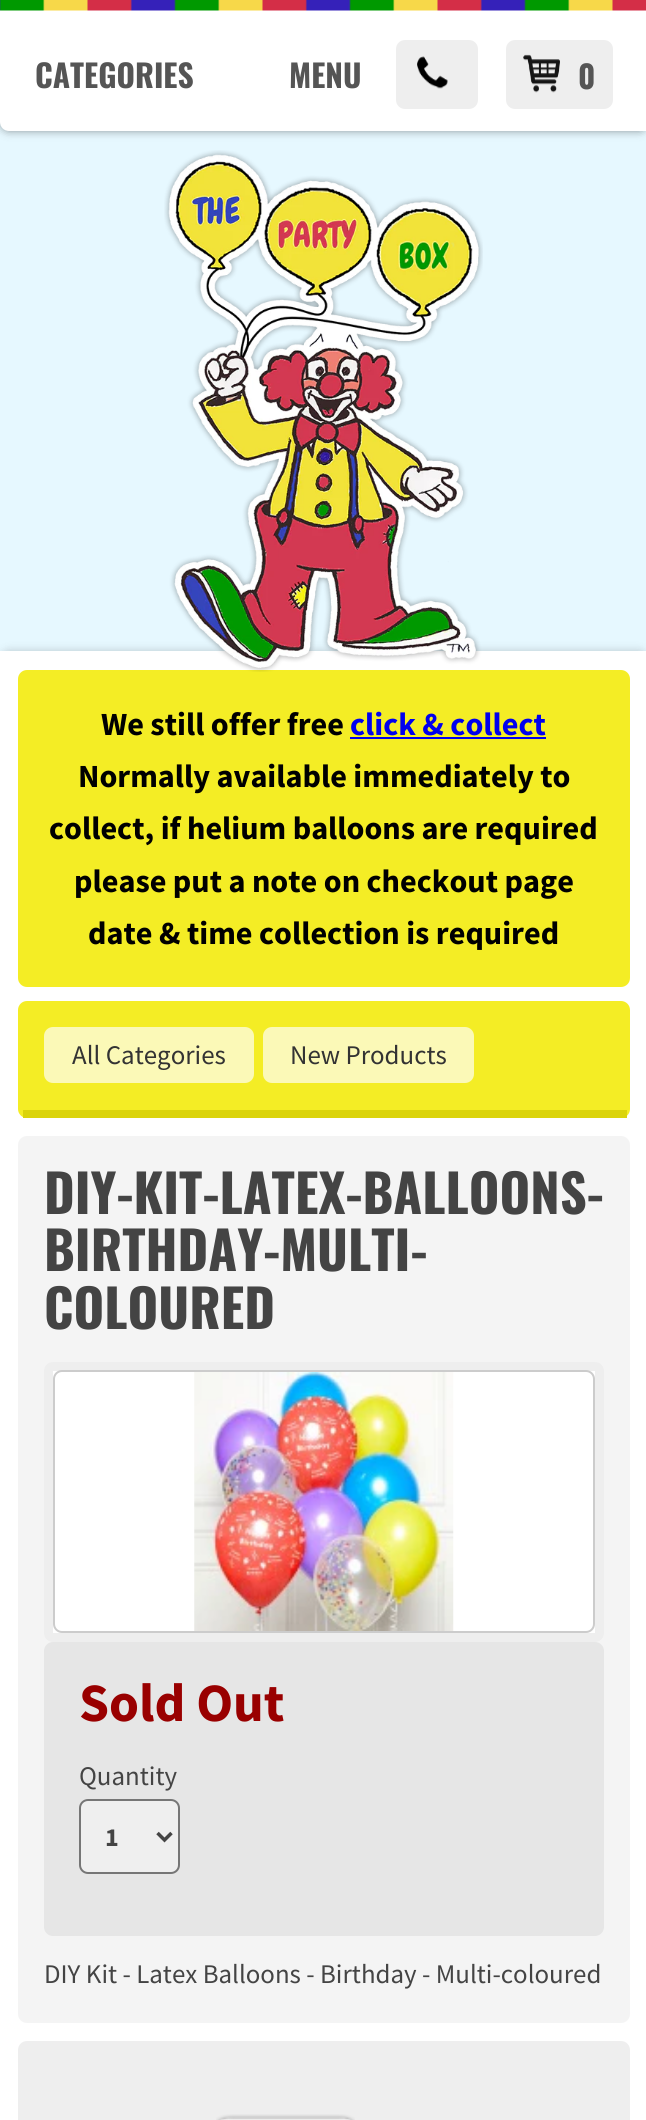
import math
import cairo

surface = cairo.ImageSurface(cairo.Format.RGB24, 646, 2120)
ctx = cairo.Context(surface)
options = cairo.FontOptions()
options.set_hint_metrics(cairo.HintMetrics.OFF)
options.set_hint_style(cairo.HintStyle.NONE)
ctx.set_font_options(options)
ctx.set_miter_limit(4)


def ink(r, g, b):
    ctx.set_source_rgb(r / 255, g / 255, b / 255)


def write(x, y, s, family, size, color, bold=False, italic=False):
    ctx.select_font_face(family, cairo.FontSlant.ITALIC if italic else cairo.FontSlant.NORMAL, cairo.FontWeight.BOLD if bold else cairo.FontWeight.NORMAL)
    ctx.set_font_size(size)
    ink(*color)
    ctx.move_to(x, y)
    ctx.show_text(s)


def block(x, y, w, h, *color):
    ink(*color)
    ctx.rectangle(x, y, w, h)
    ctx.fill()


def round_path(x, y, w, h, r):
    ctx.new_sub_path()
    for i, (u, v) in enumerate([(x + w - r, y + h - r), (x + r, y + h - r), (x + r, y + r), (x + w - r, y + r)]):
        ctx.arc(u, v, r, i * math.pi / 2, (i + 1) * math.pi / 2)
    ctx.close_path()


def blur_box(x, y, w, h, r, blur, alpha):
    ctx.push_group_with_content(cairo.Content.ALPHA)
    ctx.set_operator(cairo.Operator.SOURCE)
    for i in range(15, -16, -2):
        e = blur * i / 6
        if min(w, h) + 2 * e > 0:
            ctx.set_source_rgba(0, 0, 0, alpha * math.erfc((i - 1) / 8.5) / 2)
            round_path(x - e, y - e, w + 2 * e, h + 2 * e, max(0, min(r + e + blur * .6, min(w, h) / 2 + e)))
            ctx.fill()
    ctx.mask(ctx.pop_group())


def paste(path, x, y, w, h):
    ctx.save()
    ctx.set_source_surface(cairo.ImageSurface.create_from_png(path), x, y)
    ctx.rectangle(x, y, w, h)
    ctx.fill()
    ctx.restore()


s1 = dict(family="Oswald", size=31.5, color=(85, 85, 85), bold=True)
s2 = dict(family="Source Sans Pro", size=32.25, color=(0, 0, 0), bold=True)
s3 = dict(family="Source Sans Pro", size=32.25, color=(0, 0, 238), bold=True)
s4 = dict(family="Source Sans Pro", size=26.9, color=(51, 51, 51))
s5 = dict(family="Oswald", size=52.5, color=(68, 68, 68), bold=True)
s6 = dict(family="Source Sans Pro", size=54, color=(153, 0, 0), bold=True)
s7 = dict(family="Source Sans Pro", size=26.9, color=(68, 68, 68))
s8 = dict(family="Source Sans Pro", size=26, color=(68, 68, 68), bold=True)

ink(230, 248, 255)
ctx.paint()
ink(0, 0, 0)
blur_box(0, 0, 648, 131, 9, 4.5, 0.4)
ink(255, 255, 255)
ctx.new_path()
ctx.move_to(0, 0)
ctx.line_to(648, 0)
ctx.line_to(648, 131)
ctx.line_to(9, 131)
ctx.curve_to(4, 131, 0, 127, 0, 122)
ctx.close_path()
ctx.fill()
paste("pic1.png", 0, 0, 646, 11)
write(35, 88, "CATEGORIES", **s1)
write(289, 88, "MENU", **s1)
ink(238, 238, 238)
round_path(396, 40, 82, 69, 9)
ctx.fill()
paste("pic2.png", 417, 56, 31, 33)
round_path(506, 40, 107, 69, 9)
ctx.fill()
paste("pic3.png", 523, 54, 37, 39)
write(578, 89, "0", **s1)
ink(0, 0, 0)
blur_box(0, 651, 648, 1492, 9, 4.5, 0.2)
block(0, 651, 646, 1469, 255, 255, 255)
ink(244, 237, 37)
round_path(18, 670, 612, 317, 9)
ctx.fill()
paste("pic4.png", 164, 150, 319, 522)
write(101, 735, "We still offer free", **s2)
write(350, 735, "click & collect", **s3)
block(350, 737, 196, 2, 0, 0, 238)
write(78, 787, "Normally available immediately to", **s2)
write(49, 839, "collect, if helium balloons are required", **s2)
write(74, 892, "please put a note on checkout page", **s2)
write(88, 944, "date & time collection is required", **s2)
ink(244, 237, 37)
round_path(18, 1001, 612, 117, 9)
ctx.fill()
block(23, 1110, 604, 8, 219, 212, 11)
ink(251, 249, 183)
round_path(44, 1027, 210, 56, 9)
ctx.fill()
write(72, 1064, "All Categories", **s4)
ink(251, 249, 183)
round_path(263, 1027, 211, 56, 9)
ctx.fill()
write(290, 1064, "New Products", **s4)
ink(244, 244, 244)
round_path(18, 1136, 612, 887, 9)
ctx.fill()
write(44, 1214, "DIY-KIT-LATEX-BALLOONS-", **s5)
write(44, 1271, "BIRTHDAY-MULTI-", **s5)
write(44, 1329, "COLOURED", **s5)
ink(255, 255, 255)
round_path(48.5, 1366.5, 551, 271, 4.5)
ctx.fill_preserve()
ink(238, 238, 238)
ctx.set_line_width(9)
ctx.stroke()
ink(255, 255, 255)
round_path(54, 1371, 540, 261, 8)
ctx.fill_preserve()
ink(204, 204, 204)
ctx.set_line_width(2)
ctx.stroke()
paste("pic5.png", 194, 1372, 260, 259)
ink(230, 230, 230)
round_path(44, 1642, 560, 294, 9)
ctx.fill()
write(79, 1721, "Sold Out", **s6)
write(79, 1785, "Quantity", **s7)
ink(239, 239, 239)
round_path(80, 1800, 99, 73, 8)
ctx.fill_preserve()
ink(118, 118, 118)
ctx.stroke()
ctx.new_path()
ctx.move_to(157.5, 1833)
ctx.line_to(164.5, 1840)
ctx.line_to(171.5, 1833)
ink(68, 68, 68)
ctx.set_line_width(3.5)
ctx.stroke()
write(105, 1846, "1", **s8)
write(44, 1983, "DIY Kit - Latex Balloons - Birthday - Multi-coloured", **s7)
ink(238, 238, 238)
round_path(22.5, 2045.5, 603, 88, 4.5)
ctx.fill_preserve()
ctx.set_line_width(9)
ctx.stroke()
paste("pic6.png", 216, 2114, 139, 6)
surface.write_to_png("screenshot.png")
